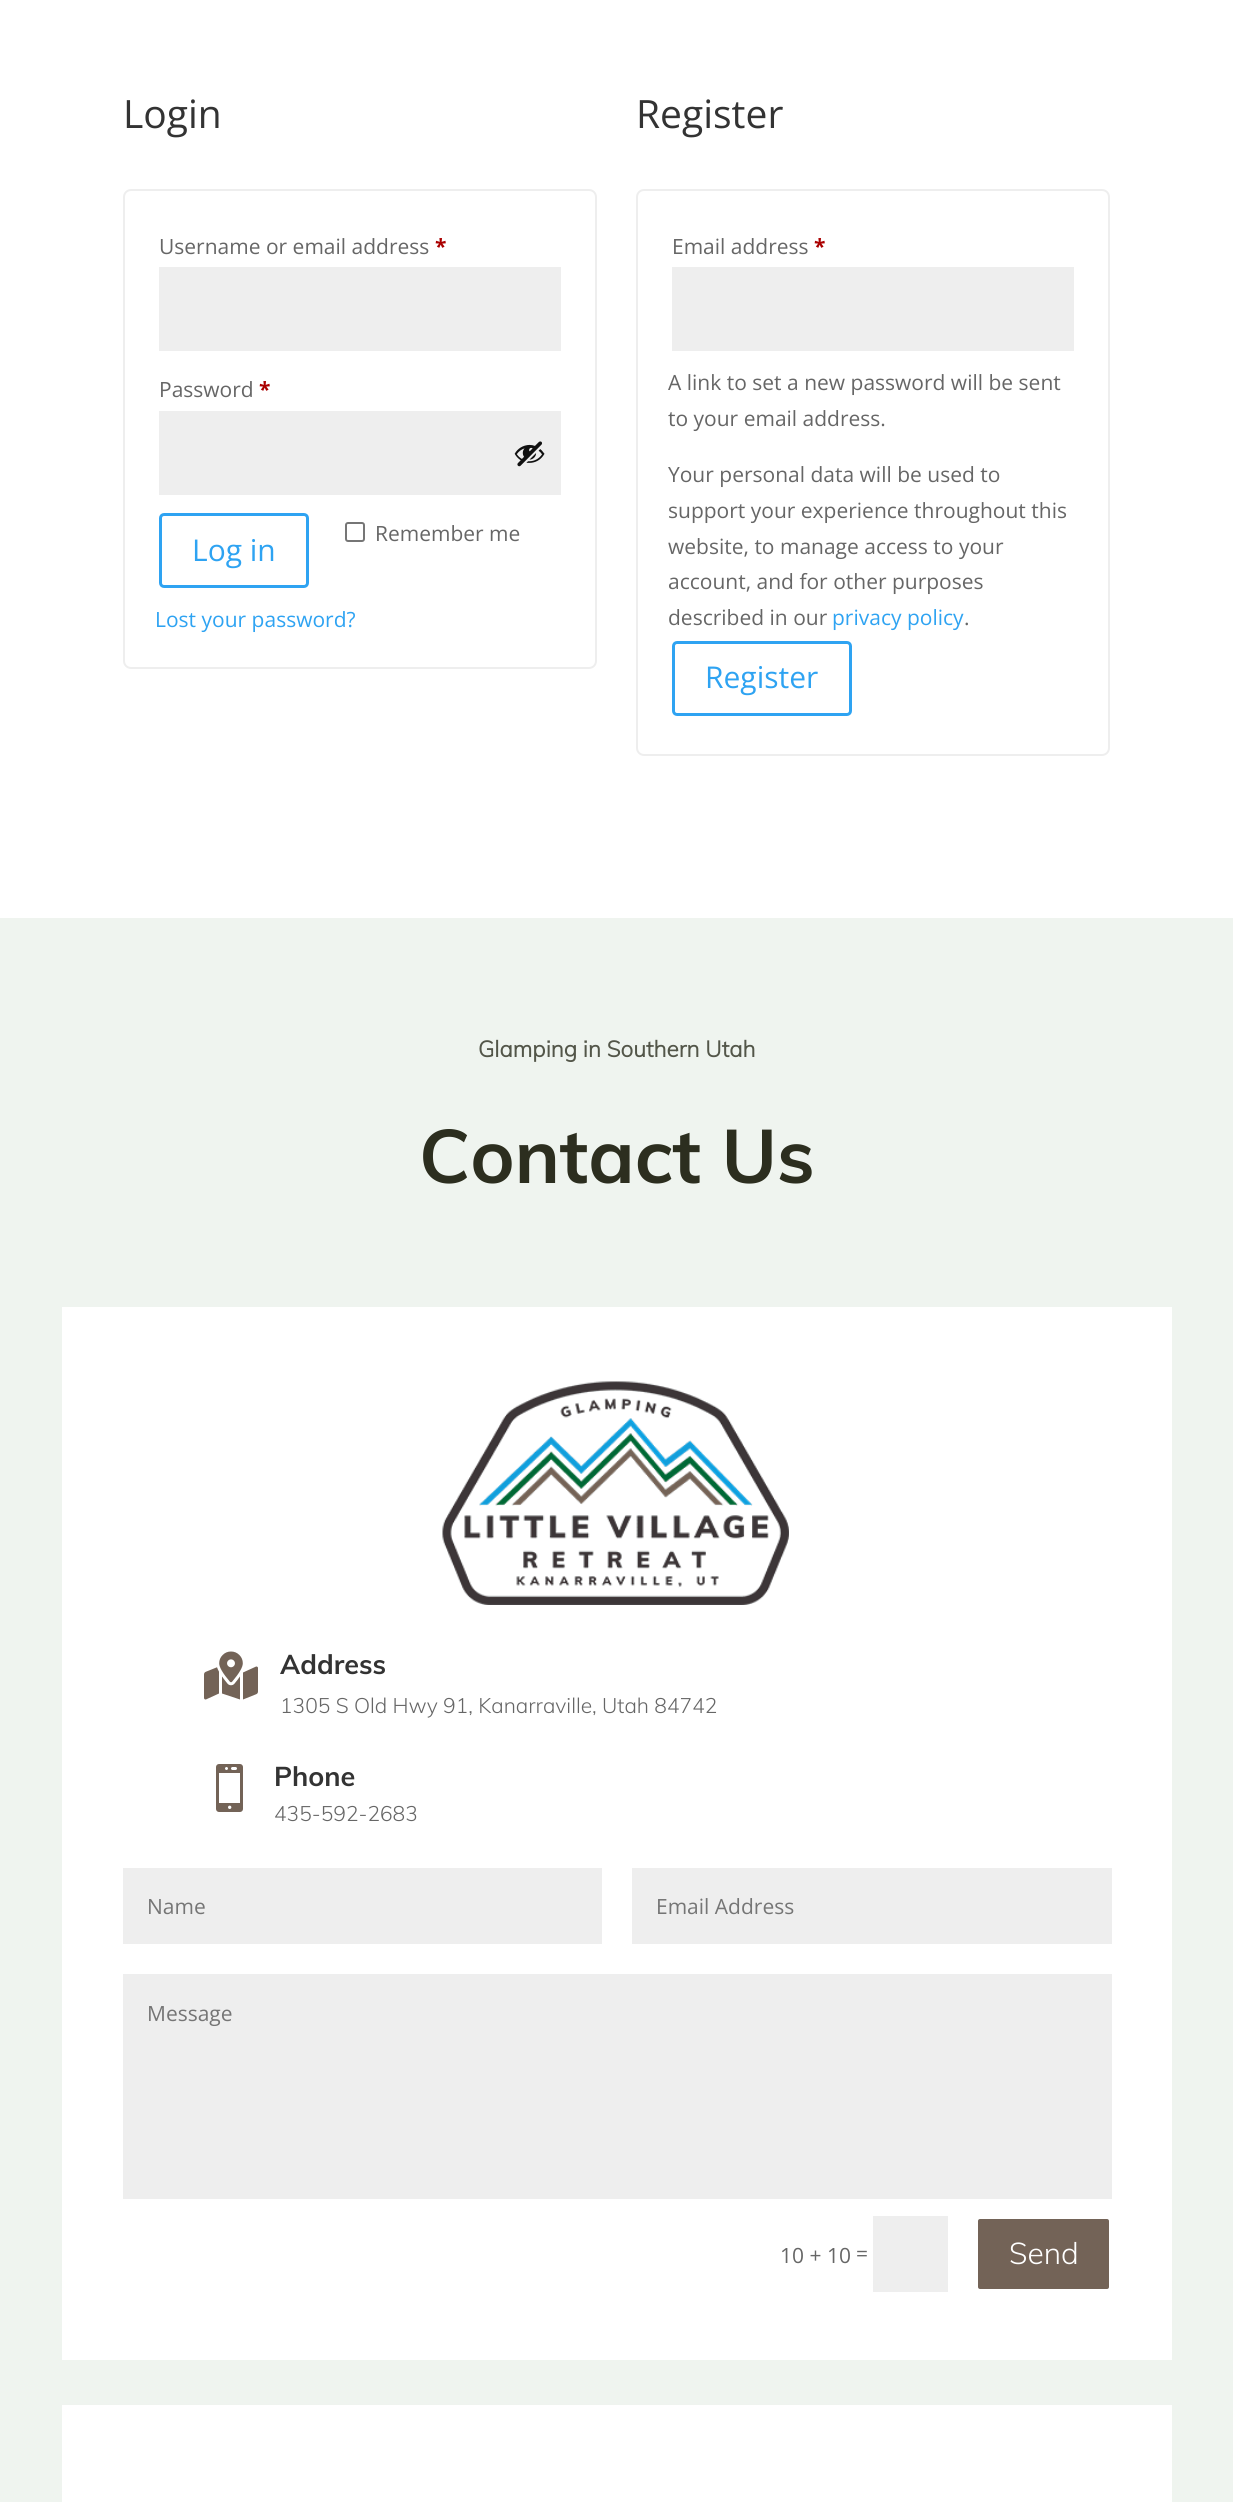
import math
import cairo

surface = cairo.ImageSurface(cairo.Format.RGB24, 1233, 2502)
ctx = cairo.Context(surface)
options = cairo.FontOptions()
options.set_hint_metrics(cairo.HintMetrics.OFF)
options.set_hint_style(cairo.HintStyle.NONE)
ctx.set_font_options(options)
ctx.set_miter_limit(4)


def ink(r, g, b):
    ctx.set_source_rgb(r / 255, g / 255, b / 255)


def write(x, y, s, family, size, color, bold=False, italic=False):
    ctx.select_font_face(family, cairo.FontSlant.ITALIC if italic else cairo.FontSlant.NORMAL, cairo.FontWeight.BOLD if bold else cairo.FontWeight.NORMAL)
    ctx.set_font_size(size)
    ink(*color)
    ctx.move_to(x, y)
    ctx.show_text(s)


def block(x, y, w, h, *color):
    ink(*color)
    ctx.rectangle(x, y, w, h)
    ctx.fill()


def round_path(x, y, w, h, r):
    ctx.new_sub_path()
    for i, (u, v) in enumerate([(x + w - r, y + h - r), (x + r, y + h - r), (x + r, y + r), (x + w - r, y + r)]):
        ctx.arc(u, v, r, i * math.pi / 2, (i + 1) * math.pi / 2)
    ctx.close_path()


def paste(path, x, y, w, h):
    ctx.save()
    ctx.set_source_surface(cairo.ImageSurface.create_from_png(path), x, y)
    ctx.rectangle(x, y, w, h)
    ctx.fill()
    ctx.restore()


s1 = dict(family="Open Sans", size=39, color=(51, 51, 51))
s2 = dict(family="Open Sans", size=21, color=(102, 102, 102))
s3 = dict(family="Open Sans", size=21, color=(170, 0, 0), bold=True)
s4 = dict(family="Open Sans", size=30, color=(46, 163, 242))
s5 = dict(family="Open Sans", size=21, color=(46, 163, 242))
s6 = dict(family="Muli", size=22.5, color=(83, 86, 73), bold=True)
s7 = dict(family="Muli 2", size=75, color=(44, 46, 31), bold=True)
s8 = dict(family="Muli 2", size=27, color=(51, 51, 51), bold=True)
s9 = dict(family="Muli Light", size=21, color=(102, 102, 102))
s10 = dict(family="Open Sans", size=21, color=(117, 117, 117))
s11 = dict(family="Muli Light", size=30, color=(255, 255, 255))

ink(255, 255, 255)
ctx.paint()
write(123, 128, "Login", **s1)
round_path(124, 190, 472, 478, 7)
ink(238, 238, 238)
ctx.stroke()
write(159, 254, "Username or email address", **s2)
write(435, 254, "*", **s3)
block(159, 267, 402, 84, 238, 238, 238)
write(159, 397, "Password", **s2)
write(259, 397, "*", **s3)
block(159, 411, 402, 84, 238, 238, 238)
paste("pic1.png", 514, 441, 31, 26)
round_path(346, 523, 18, 18, 2)
ink(118, 118, 118)
ctx.stroke()
write(375, 541, "Remember me", **s2)
round_path(160.5, 514.5, 147, 72, 3.5)
ink(46, 163, 242)
ctx.set_line_width(3)
ctx.stroke()
write(192, 561, "Log in", **s4)
write(155, 627, "Lost your password?", **s5)
write(636, 128, "Register", **s1)
round_path(637, 190, 472, 565, 7)
ink(238, 238, 238)
ctx.set_line_width(2)
ctx.stroke()
write(672, 254, "Email address", **s2)
write(814, 254, "*", **s3)
block(672, 267, 402, 84, 238, 238, 238)
write(668, 390, "A link to set a new password will be sent", **s2)
write(668, 426, "to your email address.", **s2)
write(668, 482, "Your personal data will be used to", **s2)
write(668, 518, "support your experience throughout this", **s2)
write(668, 554, "website, to manage access to your", **s2)
write(668, 589, "account, and for other purposes", **s2)
write(668, 625, "described in our", **s2)
write(832, 625, "privacy policy", **s5)
write(964, 625, ".", **s2)
round_path(673.5, 642.5, 177, 72, 3.5)
ink(46, 163, 242)
ctx.set_line_width(3)
ctx.stroke()
write(705, 688, "Register", **s4)
block(0, 918, 1233, 1584, 239, 244, 239)
write(478, 1057, "Glamping in Southern Utah", **s6)
write(419, 1183, "Contact Us", **s7)
block(62, 1307, 1110, 1053, 255, 255, 255)
paste("pic2.png", 442, 1381, 347, 224)
paste("pic3.png", 204, 1651, 54, 49)
write(280, 1674, "Address", **s8)
write(280, 1713, "1305 S Old Hwy 91, Kanarraville, Utah 84742", **s9)
paste("pic4.png", 216, 1764, 27, 48)
write(274, 1786, "Phone", **s8)
write(274, 1821, "435-592-2683", **s9)
block(123, 1868, 479, 76, 238, 238, 238)
write(147, 1914, "Name", **s10)
block(632, 1868, 480, 76, 238, 238, 238)
write(656, 1914, "Email Address", **s10)
block(123, 1974, 989, 225, 238, 238, 238)
write(147, 2021, "Message", **s10)
write(780, 2263, "10 + 10", **s2)
write(856, 2261, "=", **s2)
block(873, 2216, 75, 76, 238, 238, 238)
ink(115, 99, 87)
round_path(976.5, 2217.5, 134, 73, 3.5)
ctx.fill_preserve()
ink(255, 255, 255)
ctx.stroke()
write(1009, 2264, "Send", **s11)
block(62, 2405, 1110, 97, 255, 255, 255)
surface.write_to_png("screenshot.png")
